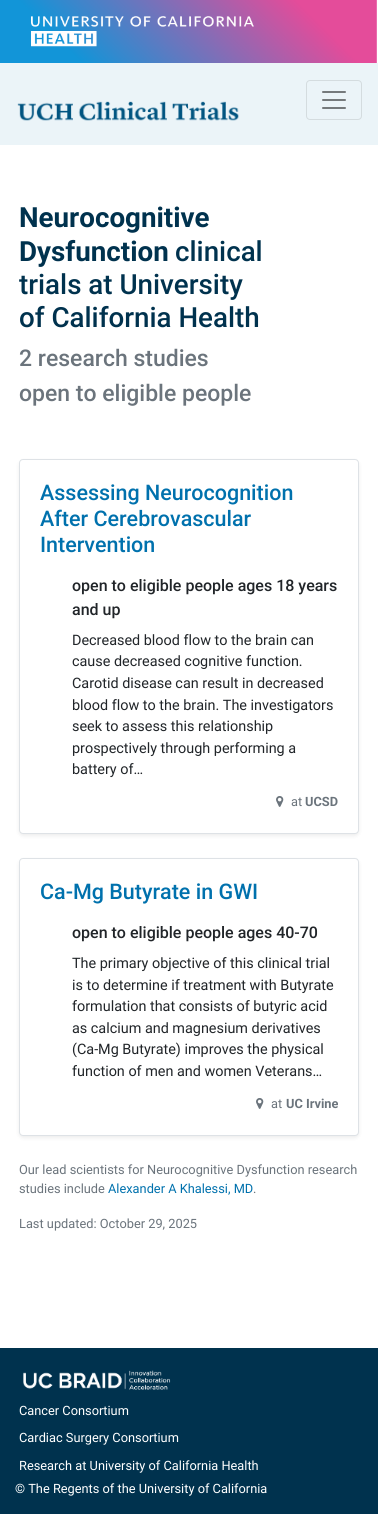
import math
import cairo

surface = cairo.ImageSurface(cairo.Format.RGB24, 378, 1514)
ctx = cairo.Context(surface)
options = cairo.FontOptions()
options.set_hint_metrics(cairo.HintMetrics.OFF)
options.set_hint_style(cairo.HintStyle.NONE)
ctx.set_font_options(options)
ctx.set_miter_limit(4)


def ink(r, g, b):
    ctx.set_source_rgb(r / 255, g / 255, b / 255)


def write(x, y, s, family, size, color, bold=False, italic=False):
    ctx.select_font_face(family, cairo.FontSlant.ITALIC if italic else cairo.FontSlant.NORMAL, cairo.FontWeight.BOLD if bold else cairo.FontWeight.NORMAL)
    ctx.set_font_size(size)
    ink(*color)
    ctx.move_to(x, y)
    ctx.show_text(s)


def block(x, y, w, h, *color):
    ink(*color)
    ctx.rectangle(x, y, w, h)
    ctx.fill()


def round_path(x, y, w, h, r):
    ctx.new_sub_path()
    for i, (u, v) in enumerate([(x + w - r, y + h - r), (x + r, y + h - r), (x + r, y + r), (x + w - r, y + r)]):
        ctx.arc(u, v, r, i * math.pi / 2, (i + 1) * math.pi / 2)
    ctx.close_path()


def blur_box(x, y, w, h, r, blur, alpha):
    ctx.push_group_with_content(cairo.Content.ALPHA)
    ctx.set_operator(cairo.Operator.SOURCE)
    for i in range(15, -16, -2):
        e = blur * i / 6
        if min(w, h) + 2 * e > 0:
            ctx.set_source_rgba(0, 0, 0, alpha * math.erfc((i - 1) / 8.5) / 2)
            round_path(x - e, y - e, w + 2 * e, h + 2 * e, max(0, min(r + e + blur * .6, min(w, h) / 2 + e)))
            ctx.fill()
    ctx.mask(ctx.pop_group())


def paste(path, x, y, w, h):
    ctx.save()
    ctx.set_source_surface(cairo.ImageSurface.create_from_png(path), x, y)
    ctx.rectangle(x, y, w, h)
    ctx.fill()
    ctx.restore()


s1 = dict(family="Roboto", size=27.75, color=(0, 50, 78), bold=True)
s2 = dict(family="Roboto Medium", size=27.75, color=(0, 50, 78))
s3 = dict(family="Roboto Medium", size=23, color=(107, 116, 124))
s4 = dict(family="Roboto Medium", size=21.5, color=(0, 113, 173))
s5 = dict(family="Roboto Medium", size=16, color=(33, 37, 41))
s6 = dict(family="Roboto", size=14.4, color=(33, 37, 41))
s7 = dict(family="Roboto", size=12.8, color=(107, 116, 124))
s8 = dict(family="Roboto", size=12.8, color=(107, 116, 124), bold=True)
s9 = dict(family="Roboto", size=12.8, color=(0, 113, 173))
s10 = dict(family="Roboto", size=12.8, color=(255, 255, 255))

ink(255, 255, 255)
ctx.paint()
paste("pic1.png", 0, 0, 377, 63)
paste("pic2.png", 31, 16, 223, 31)
block(0, 63, 378, 82, 235, 244, 248)
paste("pic3.png", 17, 101, 222, 20)
round_path(306.5, 80.5, 55, 39, 3.5)
ink(212, 220, 223)
ctx.set_line_width(1)
ctx.stroke()
paste("pic4.png", 322, 91, 24, 18)
write(19, 227, "Neurocognitive", **s1)
write(19, 261, "Dysfunction", **s1)
write(175, 261, "clinical", **s2)
write(19, 294, "trials at University", **s2)
write(19, 327, "of California Health", **s2)
write(19, 366, "2 research studies", **s3)
write(19, 401, "open to eligible people", **s3)
ink(0, 0, 0)
blur_box(19, 461, 340, 375, 4, 2, 0.07)
ink(255, 255, 255)
round_path(19.5, 459.5, 339, 374, 3.5)
ctx.fill_preserve()
ink(222, 226, 230)
ctx.stroke()
write(40, 500, "Assessing Neurocognition", **s4)
write(40, 526, "After Cerebrovascular", **s4)
write(40, 552, "Intervention", **s4)
write(72, 591, "open to eligible people ages 18 years", **s5)
write(72, 615, "and up", **s5)
write(72, 645, "Decreased blood flow to the brain can", **s6)
write(72, 666, "cause decreased cognitive function.", **s6)
write(72, 688, "Carotid disease can result in decreased", **s6)
write(72, 710, "blood flow to the brain. The investigators", **s6)
write(72, 731, "seek to assess this relationship", **s6)
write(72, 753, "prospectively through performing a", **s6)
write(72, 774, "battery of…", **s6)
paste("pic5.png", 276, 796, 8, 11)
write(291, 806, "at", **s7)
write(305, 806, "UCSD", **s8)
ink(0, 0, 0)
blur_box(19, 860, 340, 278, 4, 2, 0.07)
ink(255, 255, 255)
round_path(19.5, 858.5, 339, 277, 3.5)
ctx.fill_preserve()
ink(222, 226, 230)
ctx.stroke()
write(40, 899, "Ca-Mg Butyrate in GWI", **s4)
write(72, 938, "open to eligible people ages 40-70", **s5)
write(72, 968, "The primary objective of this clinical trial", **s6)
write(72, 990, "is to determine if treatment with Butyrate", **s6)
write(72, 1011, "formulation that consists of butyric acid", **s6)
write(72, 1033, "as calcium and magnesium derivatives", **s6)
write(72, 1054, "(Ca-Mg Butyrate) improves the physical", **s6)
write(72, 1076, "function of men and women Veterans…", **s6)
paste("pic5.png", 256, 1098, 8, 11)
write(271, 1108, "at", **s7)
write(286, 1108, "UC Irvine", **s8)
write(19, 1174, "Our lead scientists for Neurocognitive Dysfunction research", **s7)
write(19, 1193, "studies include", **s7)
write(108, 1193, "Alexander A Khalessi, MD", **s9)
write(253, 1193, ".", **s7)
write(19, 1228, "Last updated: October 29, 2025", **s7)
block(0, 1348, 378, 166, 0, 50, 78)
paste("pic6.png", 23, 1370, 148, 20)
write(19, 1415, "Cancer Consortium", **s10)
write(19, 1442, "Cardiac Surgery Consortium", **s10)
write(19, 1470, "Research at University of California Health", **s10)
write(15, 1493, "© The Regents of the University of California", **s10)
surface.write_to_png("screenshot.png")
